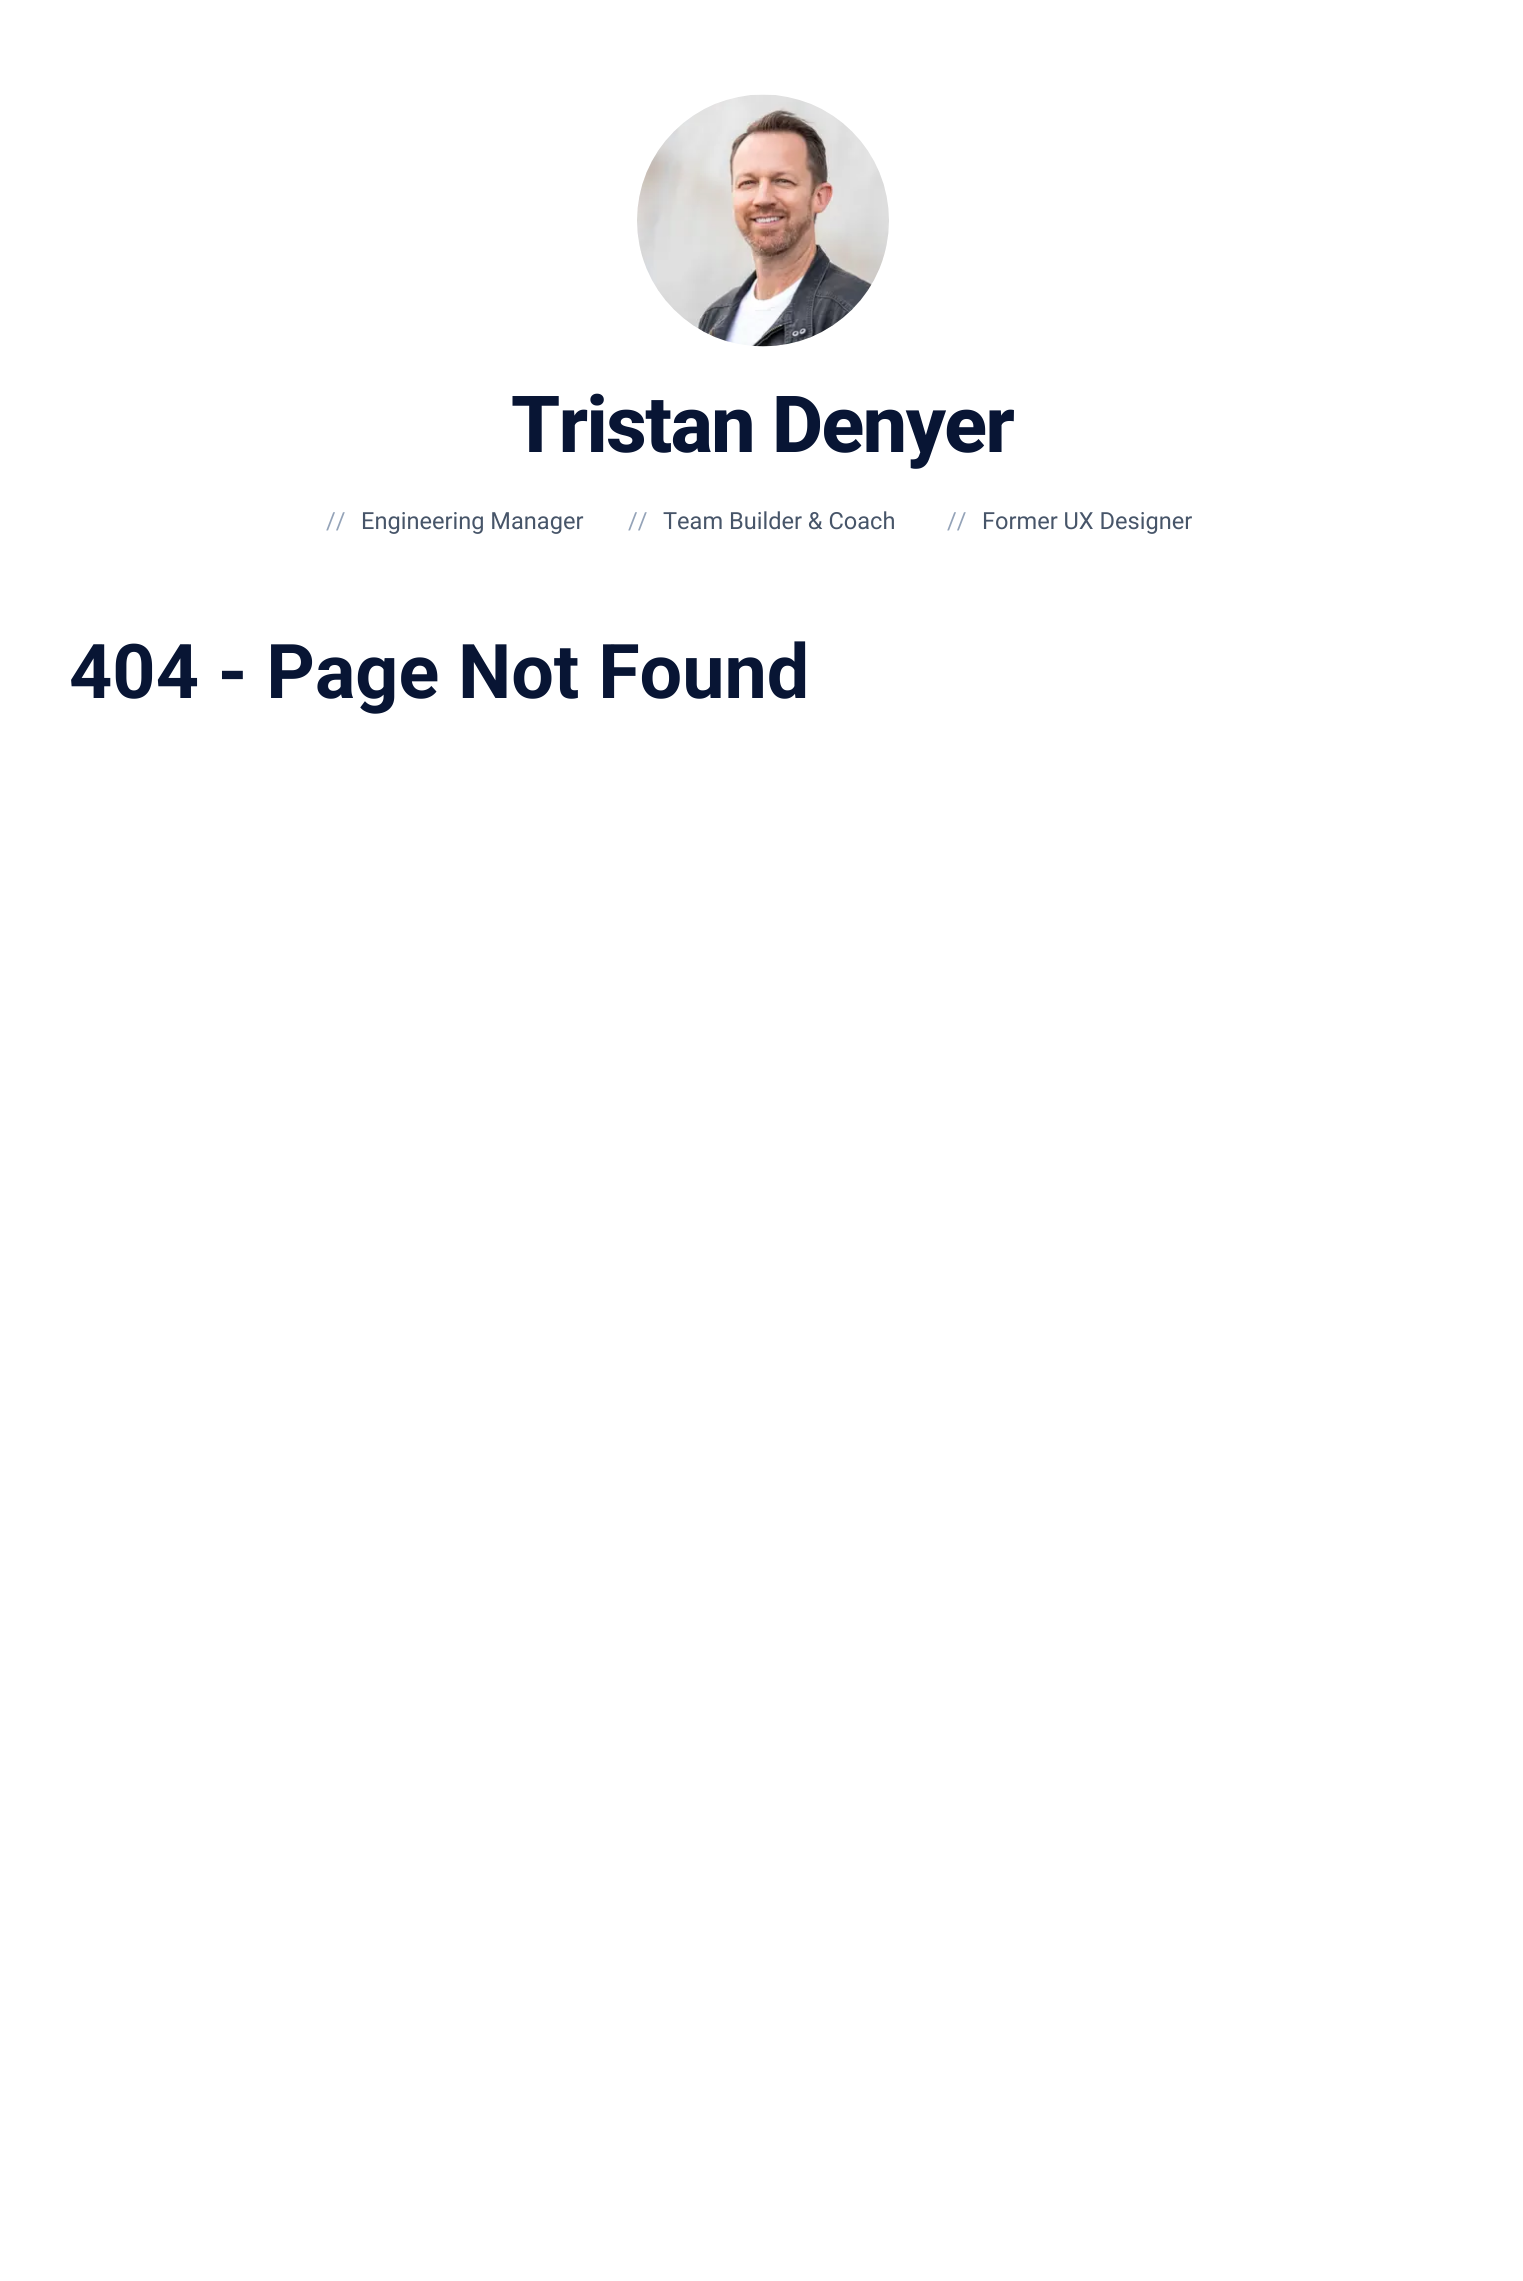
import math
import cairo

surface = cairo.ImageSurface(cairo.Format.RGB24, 1523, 2281)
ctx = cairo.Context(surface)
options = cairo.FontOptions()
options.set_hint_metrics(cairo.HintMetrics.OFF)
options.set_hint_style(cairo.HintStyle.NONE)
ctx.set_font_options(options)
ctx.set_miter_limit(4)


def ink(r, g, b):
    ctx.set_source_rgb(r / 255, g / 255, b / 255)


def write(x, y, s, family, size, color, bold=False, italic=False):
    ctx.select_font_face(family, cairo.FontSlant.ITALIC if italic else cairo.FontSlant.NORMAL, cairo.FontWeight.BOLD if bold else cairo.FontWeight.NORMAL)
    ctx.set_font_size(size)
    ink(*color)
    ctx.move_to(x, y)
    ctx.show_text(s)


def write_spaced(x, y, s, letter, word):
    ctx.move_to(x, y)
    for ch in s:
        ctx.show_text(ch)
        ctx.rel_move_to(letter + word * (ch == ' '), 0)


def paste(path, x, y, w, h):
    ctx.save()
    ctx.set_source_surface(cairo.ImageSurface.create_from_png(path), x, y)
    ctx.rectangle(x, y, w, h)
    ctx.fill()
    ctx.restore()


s1 = dict(family="Roboto", size=23.6, color=(148, 163, 184))
s2 = dict(family="Roboto", size=23.6, color=(71, 85, 105))
s3 = dict(family="Roboto", size=75.5, color=(8, 21, 52), bold=True)

ink(255, 255, 255)
ctx.paint()
paste("pic1.png", 637, 94, 252, 253)
ctx.select_font_face("Roboto ExtraBold")
ctx.set_font_size(78.75)
ink(8, 21, 52)
write_spaced(511, 452, "Tristan Denyer", -1.5, 0)
write(326, 529, "//", **s1)
write(361, 529, "Engineering Manager", **s2)
write(628, 529, "//", **s1)
write(663, 529, "Team Builder & Coach", **s2)
write(947, 529, "//", **s1)
write(982, 529, "Former UX Designer", **s2)
write(69, 698, "404 - Page Not Found", **s3)
surface.write_to_png("screenshot.png")
